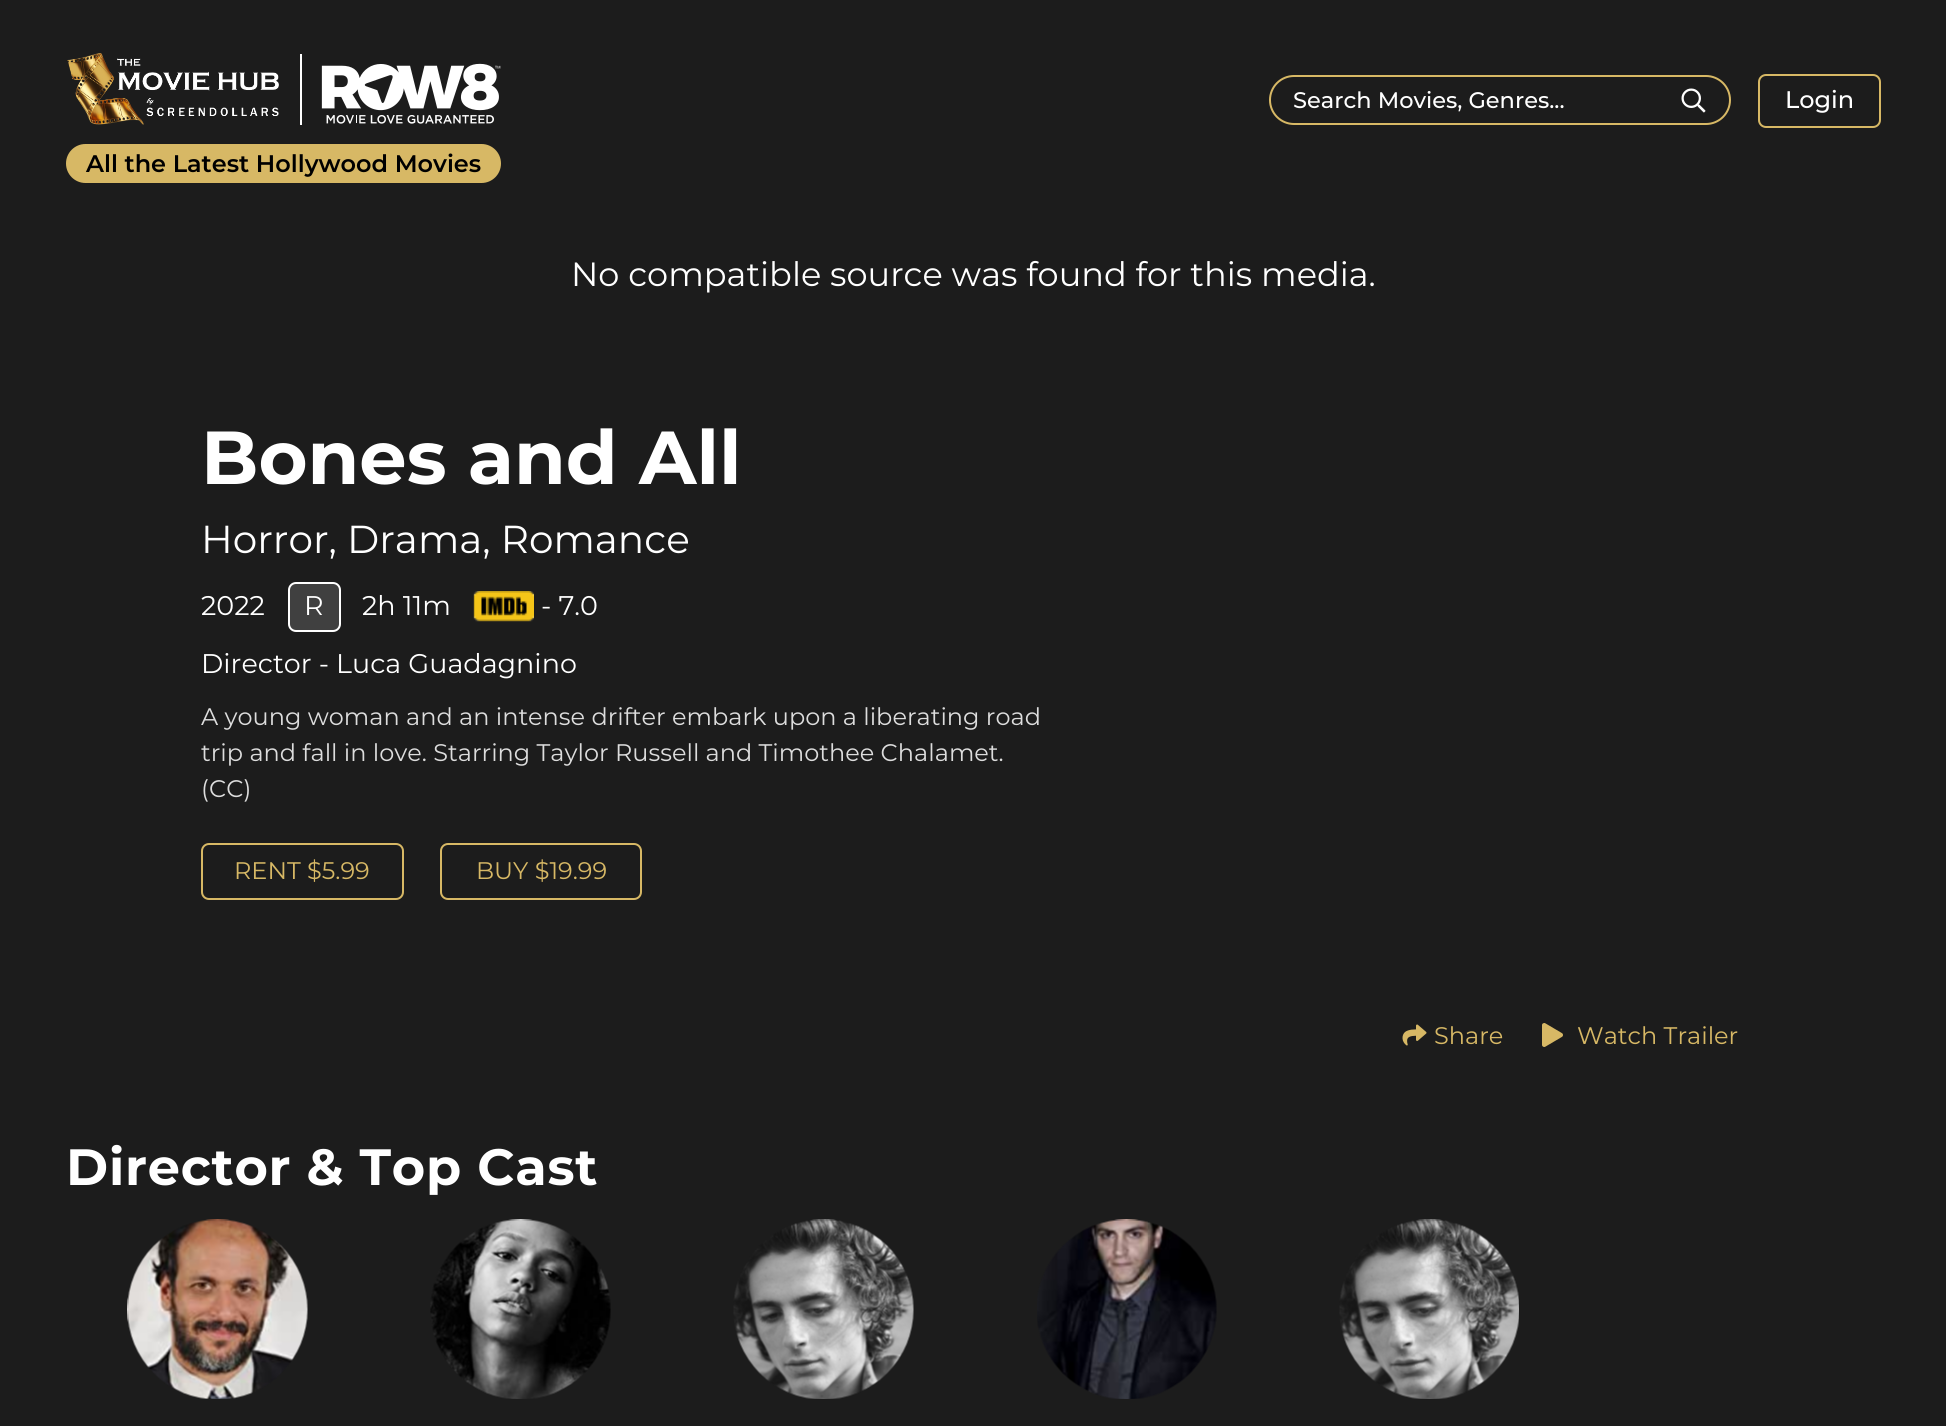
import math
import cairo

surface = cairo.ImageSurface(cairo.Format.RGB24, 1946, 1426)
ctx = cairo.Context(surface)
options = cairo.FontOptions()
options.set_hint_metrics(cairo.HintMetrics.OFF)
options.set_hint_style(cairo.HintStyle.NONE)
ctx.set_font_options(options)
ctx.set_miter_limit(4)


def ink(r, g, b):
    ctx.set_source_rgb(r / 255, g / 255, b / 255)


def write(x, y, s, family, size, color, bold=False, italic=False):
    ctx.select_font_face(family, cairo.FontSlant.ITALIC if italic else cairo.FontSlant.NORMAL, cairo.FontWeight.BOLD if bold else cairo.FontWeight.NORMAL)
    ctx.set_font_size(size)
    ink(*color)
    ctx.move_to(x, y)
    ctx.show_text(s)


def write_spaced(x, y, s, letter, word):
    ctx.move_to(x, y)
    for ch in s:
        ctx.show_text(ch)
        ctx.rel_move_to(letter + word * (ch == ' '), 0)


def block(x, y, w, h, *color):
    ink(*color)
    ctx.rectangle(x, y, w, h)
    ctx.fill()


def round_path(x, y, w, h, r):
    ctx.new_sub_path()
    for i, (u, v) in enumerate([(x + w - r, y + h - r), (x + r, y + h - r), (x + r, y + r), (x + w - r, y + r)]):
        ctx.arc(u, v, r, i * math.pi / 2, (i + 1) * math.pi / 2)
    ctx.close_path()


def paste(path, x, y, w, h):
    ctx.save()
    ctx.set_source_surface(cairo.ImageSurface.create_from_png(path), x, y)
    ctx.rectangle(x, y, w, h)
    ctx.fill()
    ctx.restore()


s1 = dict(family="Montserrat Medium", size=22.5, color=(255, 255, 255))
s2 = dict(family="Montserrat Medium", size=24, color=(255, 255, 255))
s3 = dict(family="Montserrat SemiBold", size=24, color=(0, 0, 0))
s4 = dict(family="Montserrat", size=33.6, color=(255, 255, 255))
s5 = dict(family="Montserrat", size=75, color=(255, 255, 255), bold=True)
s6 = dict(family="Montserrat", size=39, color=(255, 255, 255))
s7 = dict(family="Montserrat", size=27, color=(255, 255, 255))
s8 = dict(family="Montserrat", size=24, color=(221, 221, 221))
s9 = dict(family="Montserrat", size=24, color=(215, 184, 101))

ink(28, 28, 28)
ctx.paint()
round_path(1270, 76, 460, 48, 24)
ink(215, 184, 101)
ctx.stroke()
write(1293, 108, "Search Movies, Genres...", **s1)
paste("pic1.png", 1681, 88, 25, 25)
round_path(1759, 75, 121, 52, 7)
ink(215, 184, 101)
ctx.stroke()
write(1785, 108, "Login", **s2)
paste("pic2.png", 67, 53, 212, 72)
block(300, 54, 2, 71, 255, 255, 255)
paste("pic3.png", 321, 63, 180, 61)
ink(215, 184, 101)
round_path(66, 144, 435, 39, 19.5)
ctx.fill()
write(86, 172, "All the Latest Hollywood Movies", **s3)
write(571, 286, "No compatible source was found for this media.", **s4)
write(201, 484, "Bones and All", **s5)
write(201, 553, "Horror, Drama, Romance", **s6)
write(201, 615, "2022", **s7)
ink(64, 64, 64)
round_path(289, 583, 51, 48, 7)
ctx.fill_preserve()
ink(255, 255, 255)
ctx.stroke()
write(304, 615, "R", **s7)
write(362, 615, "2h 11m", **s7)
paste("pic4.png", 473, 591, 61, 31)
write(541, 615, "- 7.0", **s7)
write(201, 673, "Director - Luca Guadagnino", **s7)
write(201, 725, "A young woman and an intense drifter embark upon a liberating road", **s8)
write(201, 761, "trip and fall in love. Starring Taylor Russell and Timothee Chalamet.", **s8)
write(201, 797, "(CC)", **s8)
round_path(202, 844, 201, 55, 7)
ink(215, 184, 101)
ctx.stroke()
write(234, 879, "RENT $5.99", **s9)
round_path(441, 844, 200, 55, 7)
ctx.stroke()
write(476, 879, "BUY $19.99", **s9)
paste("pic5.png", 1402, 1024, 25, 22)
write(1434, 1044, "Share", **s9)
paste("pic6.png", 1542, 1023, 21, 24)
write(1577, 1044, "Watch Trailer", **s9)
ctx.select_font_face("Montserrat", cairo.FontSlant.NORMAL, cairo.FontWeight.BOLD)
ctx.set_font_size(51)
ink(255, 255, 255)
write_spaced(66, 1185, "Director & Top Cast", 0.75, 0)
paste("pic7.png", 127, 1219, 181, 180)
paste("pic8.png", 430, 1219, 181, 180)
paste("pic9.png", 733, 1219, 181, 180)
paste("pic10.png", 1037, 1219, 180, 180)
paste("pic11.png", 1339, 1219, 180, 180)
surface.write_to_png("screenshot.png")
